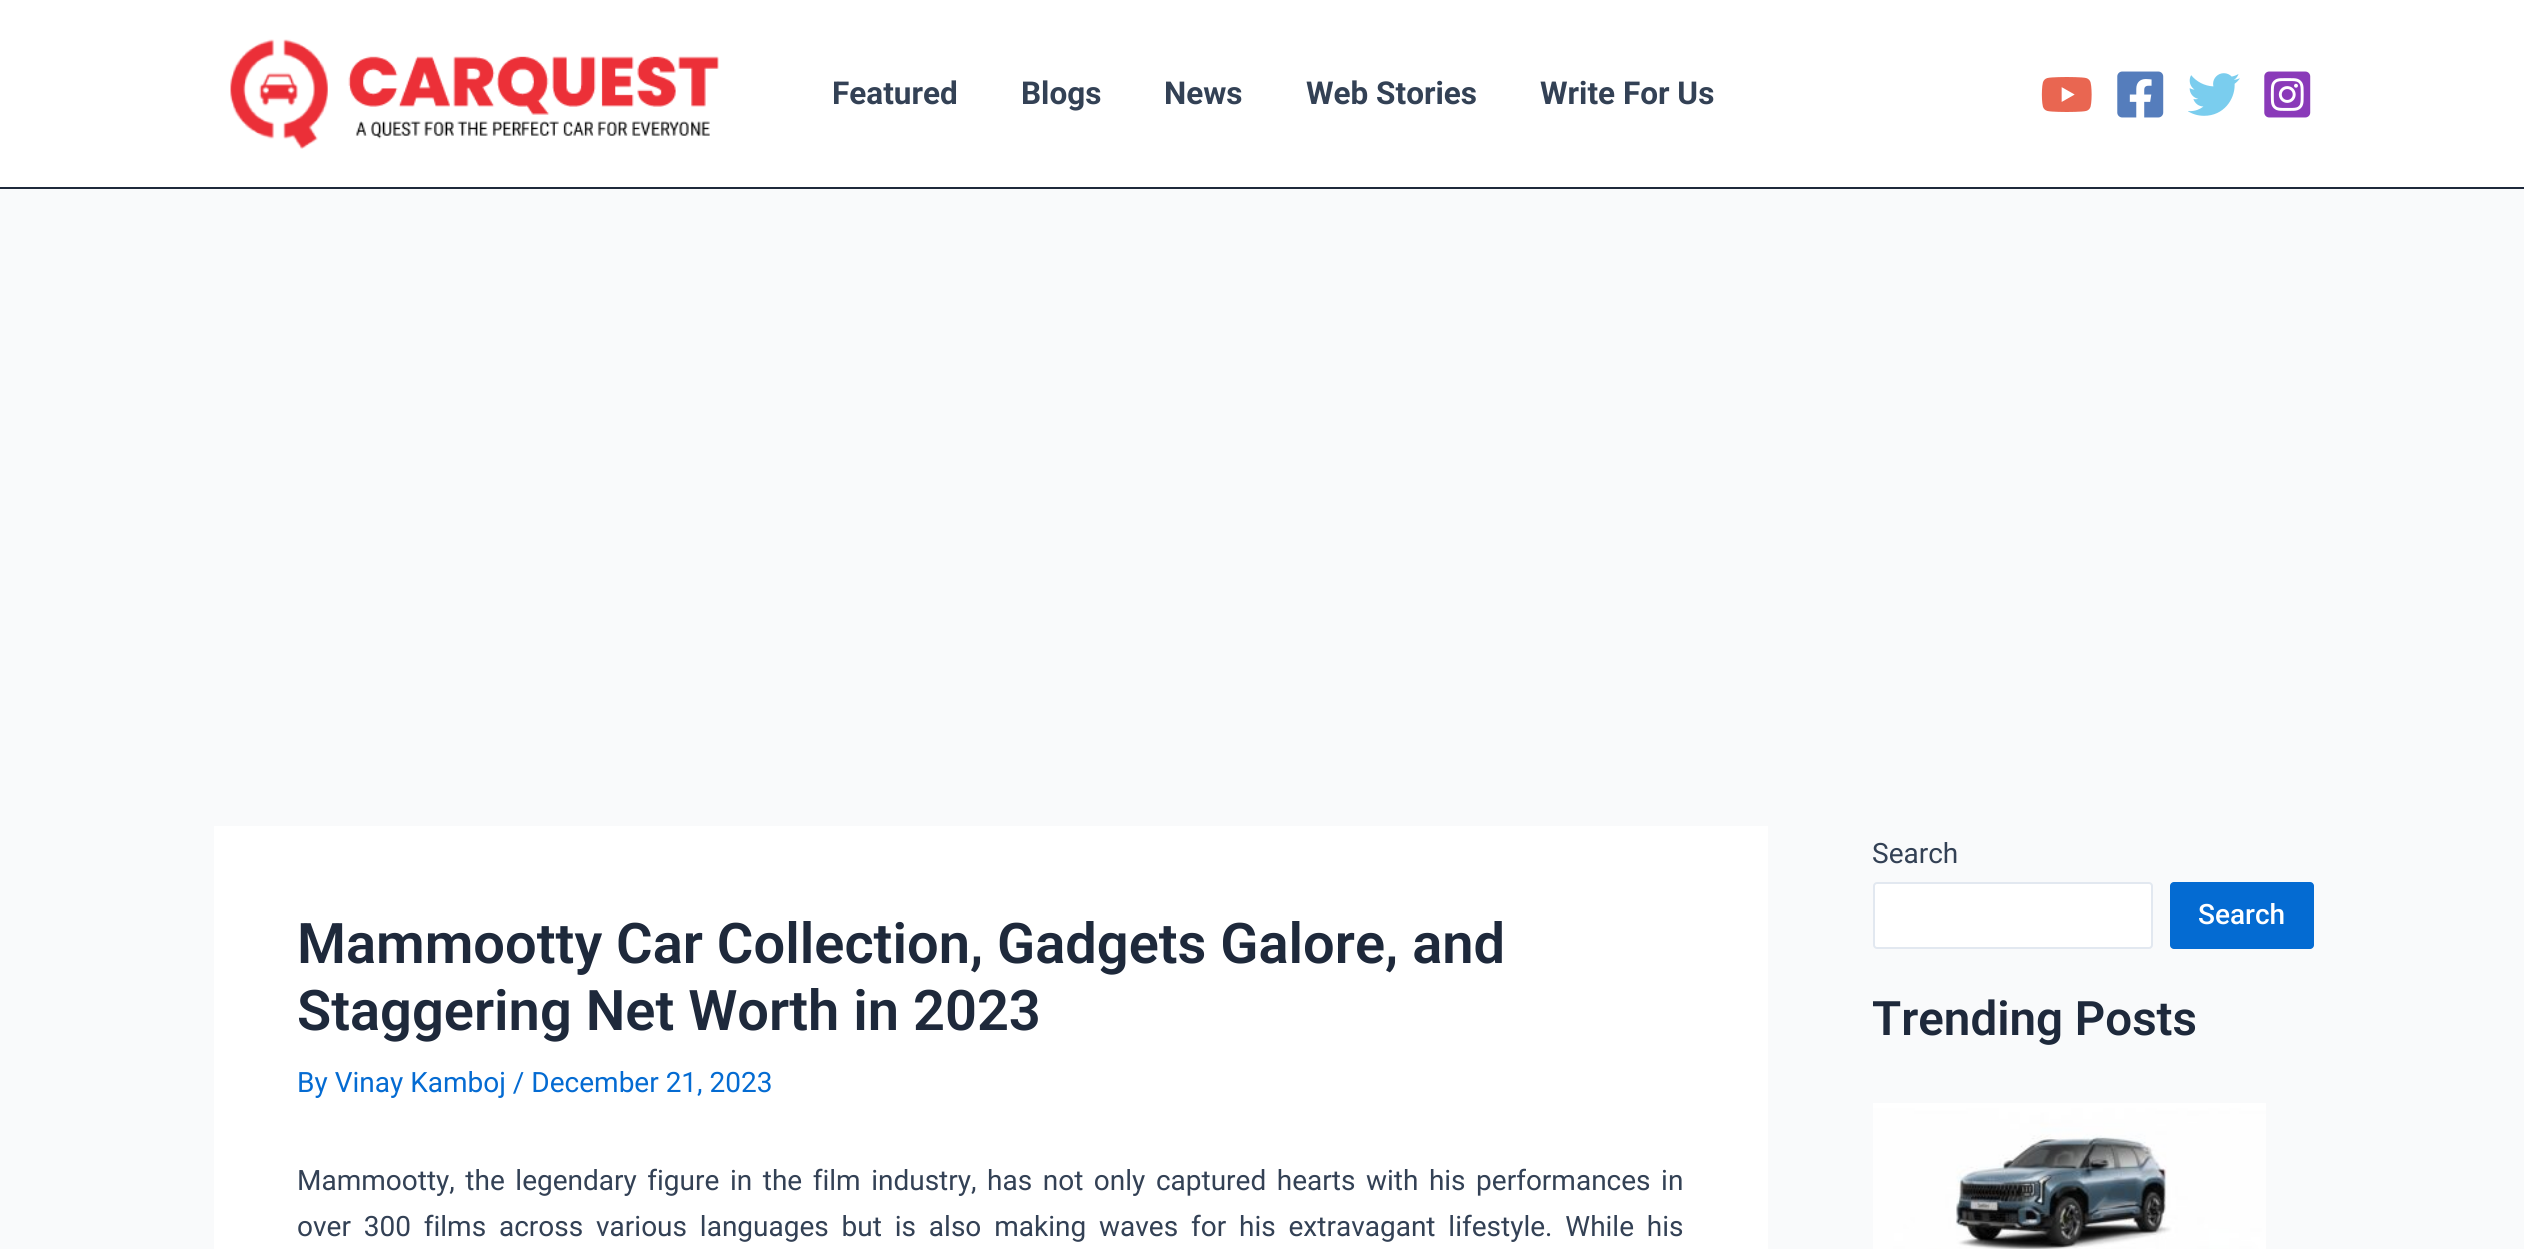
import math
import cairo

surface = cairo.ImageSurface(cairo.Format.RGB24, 2524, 1249)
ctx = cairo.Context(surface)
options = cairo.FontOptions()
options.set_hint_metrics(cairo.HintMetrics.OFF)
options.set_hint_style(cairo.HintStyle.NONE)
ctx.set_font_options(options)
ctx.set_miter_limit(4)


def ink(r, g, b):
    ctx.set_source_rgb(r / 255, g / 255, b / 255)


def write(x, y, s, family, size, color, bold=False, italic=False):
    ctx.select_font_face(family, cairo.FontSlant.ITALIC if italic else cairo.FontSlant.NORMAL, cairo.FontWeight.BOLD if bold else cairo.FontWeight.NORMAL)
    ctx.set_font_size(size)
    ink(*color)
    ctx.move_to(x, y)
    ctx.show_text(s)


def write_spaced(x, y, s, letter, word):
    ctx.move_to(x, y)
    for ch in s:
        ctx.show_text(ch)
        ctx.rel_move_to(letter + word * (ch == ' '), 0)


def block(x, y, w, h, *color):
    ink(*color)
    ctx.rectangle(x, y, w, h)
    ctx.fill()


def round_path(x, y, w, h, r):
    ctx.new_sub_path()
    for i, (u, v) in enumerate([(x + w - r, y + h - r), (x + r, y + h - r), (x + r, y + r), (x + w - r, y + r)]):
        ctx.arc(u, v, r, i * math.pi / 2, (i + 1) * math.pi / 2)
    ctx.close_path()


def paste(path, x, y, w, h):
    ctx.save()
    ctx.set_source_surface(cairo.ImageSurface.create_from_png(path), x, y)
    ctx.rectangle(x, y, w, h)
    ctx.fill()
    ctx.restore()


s1 = dict(family="Roboto", size=31.5, color=(51, 65, 85), bold=True)
s2 = dict(family="Roboto SemiBold", size=56, color=(30, 41, 59))
s3 = dict(family="Roboto", size=28, color=(4, 107, 210))
s4 = dict(family="Roboto", size=28, color=(51, 65, 85))
s5 = dict(family="Roboto Medium", size=28, color=(255, 255, 255))
s6 = dict(family="Roboto SemiBold", size=47.5, color=(30, 41, 59))

ink(249, 250, 251)
ctx.paint()
block(0, 0, 2524, 187, 255, 255, 255)
block(0, 187, 2524, 2, 30, 41, 59)
paste("pic1.png", 230, 39, 489, 110)
write(832, 104, "Featured", **s1)
write(1021, 104, "Blogs", **s1)
write(1164, 104, "News", **s1)
write(1306, 104, "Web Stories", **s1)
write(1540, 104, "Write For Us", **s1)
paste("pic2.png", 2041, 77, 51, 35)
paste("pic3.png", 2117, 71, 47, 47)
paste("pic4.png", 2188, 73, 52, 43)
paste("pic5.png", 2264, 71, 47, 47)
block(214, 826, 1554, 423, 255, 255, 255)
write(297, 963, "Mammootty Car Collection, Gadgets Galore, and", **s2)
write(297, 1030, "Staggering Net Worth in 2023", **s2)
write(297, 1092, "By Vinay Kamboj / December 21, 2023", **s3)
ink(51, 65, 85)
write_spaced(297, 1190, "Mammootty, the legendary figure in the film industry, has not only captured hearts with his performances in", 0, 3.6)
write_spaced(297, 1236, "over 300 films across various languages but is also making waves for his extravagant lifestyle. While his", 0, 5.9)
write(1872, 863, "Search", **s4)
ink(255, 255, 255)
round_path(1874, 883, 278, 65, 3)
ctx.fill_preserve()
ink(226, 232, 240)
ctx.stroke()
ink(4, 107, 210)
round_path(2170, 882, 144, 67, 4)
ctx.fill()
write(2198, 924, "Search", **s5)
write(1872, 1035, "Trending Posts", **s6)
paste("pic6.png", 1873, 1103, 393, 146)
surface.write_to_png("screenshot.png")
